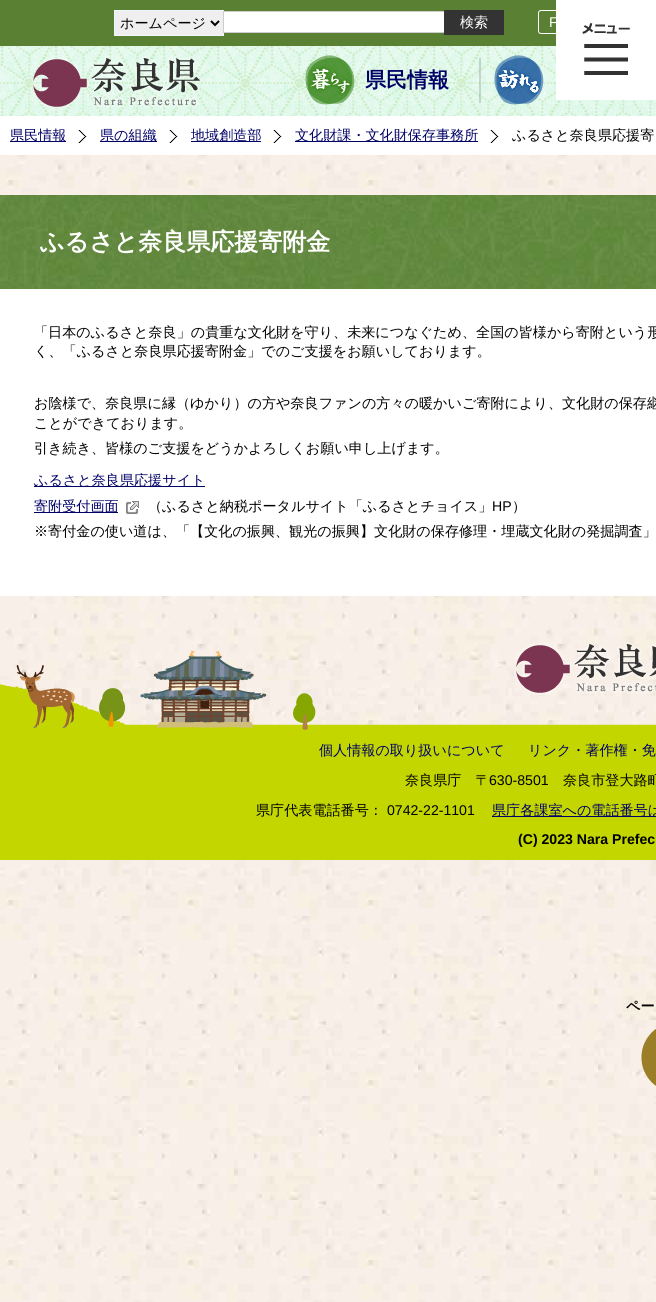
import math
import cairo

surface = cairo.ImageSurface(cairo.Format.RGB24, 656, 1302)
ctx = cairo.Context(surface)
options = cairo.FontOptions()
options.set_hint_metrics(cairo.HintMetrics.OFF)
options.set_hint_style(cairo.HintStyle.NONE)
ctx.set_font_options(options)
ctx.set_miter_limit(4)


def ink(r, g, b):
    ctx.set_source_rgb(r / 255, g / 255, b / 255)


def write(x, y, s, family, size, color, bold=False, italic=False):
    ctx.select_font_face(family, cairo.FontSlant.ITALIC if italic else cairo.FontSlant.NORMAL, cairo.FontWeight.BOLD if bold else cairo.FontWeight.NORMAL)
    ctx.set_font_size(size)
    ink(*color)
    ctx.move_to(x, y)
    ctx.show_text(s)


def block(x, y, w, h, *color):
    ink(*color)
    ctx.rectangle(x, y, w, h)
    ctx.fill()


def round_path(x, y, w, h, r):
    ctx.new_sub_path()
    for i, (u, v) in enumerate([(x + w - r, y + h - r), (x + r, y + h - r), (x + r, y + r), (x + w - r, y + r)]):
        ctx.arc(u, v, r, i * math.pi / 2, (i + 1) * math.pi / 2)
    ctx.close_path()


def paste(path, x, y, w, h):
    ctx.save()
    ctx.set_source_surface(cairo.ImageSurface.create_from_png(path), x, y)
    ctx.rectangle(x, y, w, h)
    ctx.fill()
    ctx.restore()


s1 = dict(family="WenQuanYi Zen Hei Medium", size=14.1, color=(0, 0, 0))
s2 = dict(family="WenQuanYi Zen Hei Medium", size=14.1, color=(255, 255, 255))
s3 = dict(family="Liberation Sans", size=14.1, color=(255, 255, 255))
s4 = dict(family="WenQuanYi Zen Hei", size=21, color=(0, 0, 102), bold=True)
s5 = dict(family="WenQuanYi Zen Hei Medium", size=14.1, color=(0, 0, 102))
s6 = dict(family="WenQuanYi Zen Hei", size=24, color=(255, 255, 255), bold=True)
s7 = dict(family="Liberation Sans", size=14.1, color=(0, 0, 0))
s8 = dict(family="Liberation Sans", size=14.1, color=(0, 0, 0), bold=True)
s9 = dict(family="WenQuanYi Zen Hei", size=14.1, color=(0, 0, 0), bold=True)

ink(255, 255, 255)
ctx.paint()
paste("pic1.png", 0, 155, 656, 1147)
block(0, 0, 556, 46, 90, 129, 51)
ink(239, 239, 239)
ctx.rectangle(114.5, 10.5, 109, 25)
ctx.fill_preserve()
ink(240, 248, 255)
ctx.set_line_width(1)
ctx.stroke()
ctx.new_path()
ctx.move_to(211, 21)
ctx.line_to(215, 25)
ctx.line_to(219, 21)
ink(0, 0, 0)
ctx.set_line_width(2)
ctx.stroke()
write(120, 28, "ホームページ", **s1)
ink(255, 255, 255)
ctx.rectangle(223.5, 11.5, 221, 21)
ctx.fill_preserve()
ink(204, 204, 204)
ctx.set_line_width(1)
ctx.stroke()
block(444, 10, 60, 25, 51, 51, 51)
write(460, 27, "検索", **s2)
round_path(538.5, 10.5, 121, 23, 2.5)
ctx.stroke()
write(549, 27, "F", **s3)
paste("pic3.png", 0, 46, 656, 70)
paste("pic2.png", 31, 56, 171, 53)
paste("pic4.png", 305, 55, 50, 50)
write(365, 87, "県民情報", **s4)
ctx.set_source_rgba(0.408, 0.408, 0.408, 0.25)
ctx.rectangle(479, 58, 2, 45)
ctx.fill()
paste("pic5.png", 494, 55, 50, 50)
paste("pic6.png", 556, 0, 100, 100)
block(10, 141, 56, 1, 0, 0, 102)
write(10, 140, "県民情報", **s5)
paste("pic7.png", 78, 130, 9, 13)
block(100, 141, 57, 1, 0, 0, 102)
write(100, 140, "県の組織", **s5)
paste("pic7.png", 169, 130, 9, 13)
block(191, 141, 70, 1, 0, 0, 102)
write(191, 140, "地域創造部", **s5)
paste("pic7.png", 273, 130, 9, 13)
block(295, 141, 183, 1, 0, 0, 102)
write(295, 140, "文化財課・文化財保存事務所", **s5)
paste("pic7.png", 490, 130, 9, 13)
write(512, 140, "ふるさと奈良県応援寄", **s1)
block(0, 289, 656, 307, 255, 255, 255)
paste("pic8.png", 0, 195, 656, 94)
write(40, 250, "ふるさと奈良県応援寄附金", **s6)
write(34, 337, "「日本のふるさと奈良」の貴重な文化財を守り、未来につなぐため、全国の皆様から寄附という形", **s1)
write(34, 356, "く、「ふるさと奈良県応援寄附金」でのご支援をお願いしております。", **s1)
write(34, 408, "お陰様で、奈良県に縁（ゆかり）の方や奈良ファンの方々の暖かいご寄附により、文化財の保存継", **s1)
write(34, 428, "ことができております。", **s1)
write(34, 453, "引き続き、皆様のご支援をどうかよろしくお願い申し上げます。", **s1)
block(34, 486, 171, 1, 0, 0, 102)
write(34, 485, "ふるさと奈良県応援サイト", **s5)
block(34, 512, 84, 1, 0, 0, 102)
write(34, 511, "寄附受付画面", **s5)
paste("pic9.png", 126, 501, 13, 13)
write(148, 511, "（ふるさと納税ポータルサイト「ふるさとチョイス」", **s1)
write(492, 511, "HP", **s7)
write(512, 511, "）", **s1)
write(34, 536, "※寄付金の使い道は、「【文化の振興、観光の振興】文化財の保存修理・埋蔵文化財の発掘調査」", **s1)
paste("pic11.png", 0, 650, 656, 81)
paste("pic10.png", 514, 642, 142, 53)
block(0, 731, 656, 129, 195, 214, 0)
write(319, 755, "個人情報の取り扱いについて", **s5)
write(528, 755, "リンク・著作権・免", **s5)
write(405, 785, "奈良県庁　〒", **s1)
write(489, 785, "630-8501", **s7)
write(563, 785, "奈良市登大路町", **s1)
write(256, 815, "県庁代表電話番号：", **s1)
write(387, 815, "0742-22-1101", **s7)
block(492, 816, 164, 1, 0, 0, 102)
write(492, 815, "県庁各課室への電話番号は", **s5)
write(518, 844, "(C) 2023 Nara Prefec", **s8)
paste("pic12.png", 641, 1029, 15, 57)
write(626, 1011, "ペー", **s9)
surface.write_to_png("screenshot.png")
